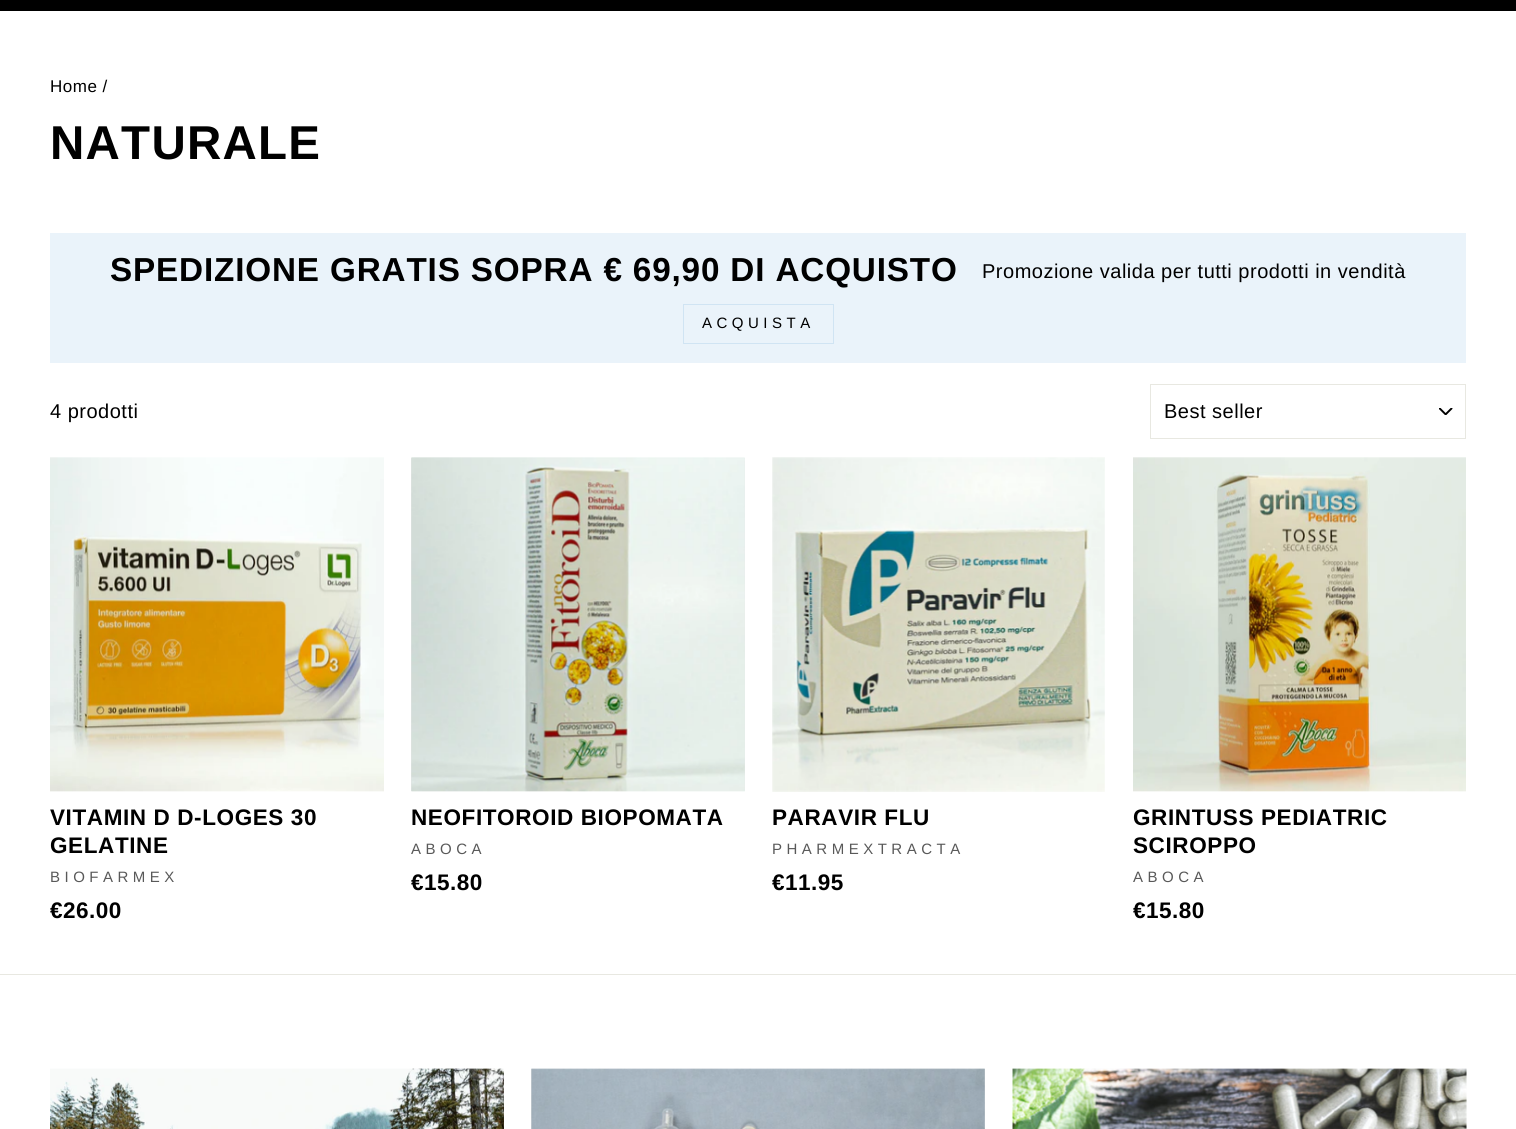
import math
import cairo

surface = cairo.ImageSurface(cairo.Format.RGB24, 1516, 1129)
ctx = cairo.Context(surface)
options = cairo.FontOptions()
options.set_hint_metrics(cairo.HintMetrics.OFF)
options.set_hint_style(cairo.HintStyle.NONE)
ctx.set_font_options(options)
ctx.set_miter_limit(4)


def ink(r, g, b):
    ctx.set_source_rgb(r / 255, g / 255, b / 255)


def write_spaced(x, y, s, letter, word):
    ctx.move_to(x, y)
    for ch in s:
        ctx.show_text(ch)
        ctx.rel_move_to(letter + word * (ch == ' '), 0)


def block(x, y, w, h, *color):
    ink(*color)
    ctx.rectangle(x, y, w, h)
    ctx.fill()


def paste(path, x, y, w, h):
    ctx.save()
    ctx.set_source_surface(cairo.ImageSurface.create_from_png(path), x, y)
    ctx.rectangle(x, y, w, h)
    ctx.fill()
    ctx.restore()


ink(255, 255, 255)
ctx.paint()
block(0, 0, 1516, 11, 0, 0, 0)
ctx.select_font_face("Arimo")
ctx.set_font_size(17)
write_spaced(50, 92, "Home /", 0.5, 0)
ctx.select_font_face("Arimo", cairo.FontSlant.NORMAL, cairo.FontWeight.BOLD)
ctx.set_font_size(47.5)
write_spaced(50, 159, "NATURALE", 1.25, 0)
block(50, 233, 1416, 130, 234, 243, 250)
ctx.set_font_size(33.25)
ink(0, 0, 0)
write_spaced(110, 281, "SPEDIZIONE GRATIS SOPRA € 69,90 DI ACQUISTO", 0.85, 0)
ctx.select_font_face("Arimo")
ctx.set_font_size(20)
write_spaced(982, 278, "Promozione valida per tutti prodotti in vendità", 0.5, 0)
ctx.rectangle(683.5, 304.5, 150, 39)
ink(208, 228, 243)
ctx.set_line_width(1)
ctx.stroke()
ctx.set_font_size(15)
ink(0, 0, 0)
write_spaced(702, 328, "ACQUISTA", 4.5, 0)
ctx.set_font_size(20)
write_spaced(50, 418, "4 prodotti", 0.5, 0)
paste("pic1.png", 1439, 408, 14, 7)
ctx.rectangle(1150.5, 384.5, 315, 54)
ink(232, 232, 225)
ctx.stroke()
ink(0, 0, 0)
write_spaced(1164, 418, "Best seller", 0.5, 0)
paste("pic2.png", 50, 457, 334, 335)
ctx.select_font_face("Arimo", cairo.FontSlant.NORMAL, cairo.FontWeight.BOLD)
ctx.set_font_size(22.5)
write_spaced(50, 825, "VITAMIN D D-LOGES 30", 0.6, 0)
write_spaced(50, 853, "GELATINE", 0.6, 0)
ctx.select_font_face("Arimo")
ctx.set_font_size(15)
ink(89, 89, 89)
write_spaced(50, 882, "BIOFARMEX", 4.5, 0)
ctx.select_font_face("Arimo", cairo.FontSlant.NORMAL, cairo.FontWeight.BOLD)
ctx.set_font_size(22.5)
ink(0, 0, 0)
write_spaced(50, 918, "€26.00", 0.5, 0)
block(411, 458, 334, 333, 229, 229, 229)
paste("pic3.png", 411, 457, 334, 335)
ink(0, 0, 0)
write_spaced(411, 825, "NEOFITOROID BIOPOMATA", 0.6, 0)
ctx.select_font_face("Arimo")
ctx.set_font_size(15)
ink(89, 89, 89)
write_spaced(411, 854, "ABOCA", 4.5, 0)
ctx.select_font_face("Arimo", cairo.FontSlant.NORMAL, cairo.FontWeight.BOLD)
ctx.set_font_size(22.5)
ink(0, 0, 0)
write_spaced(411, 890, "€15.80", 0.5, 0)
paste("pic4.png", 772, 457, 333, 335)
write_spaced(772, 825, "PARAVIR FLU", 0.6, 0)
ctx.select_font_face("Arimo")
ctx.set_font_size(15)
ink(89, 89, 89)
write_spaced(772, 854, "PHARMEXTRACTA", 4.5, 0)
ctx.select_font_face("Arimo", cairo.FontSlant.NORMAL, cairo.FontWeight.BOLD)
ctx.set_font_size(22.5)
ink(0, 0, 0)
write_spaced(772, 890, "€11.95", 0.5, 0)
paste("pic5.png", 1133, 457, 333, 335)
write_spaced(1133, 825, "GRINTUSS PEDIATRIC", 0.6, 0)
write_spaced(1133, 853, "SCIROPPO", 0.6, 0)
ctx.select_font_face("Arimo")
ctx.set_font_size(15)
ink(89, 89, 89)
write_spaced(1133, 882, "ABOCA", 4.5, 0)
ctx.select_font_face("Arimo", cairo.FontSlant.NORMAL, cairo.FontWeight.BOLD)
ctx.set_font_size(22.5)
ink(0, 0, 0)
write_spaced(1133, 918, "€15.80", 0.5, 0)
block(0, 974, 1516, 1, 232, 232, 225)
paste("pic6.png", 50, 1068, 454, 61)
block(531, 1069, 454, 60, 229, 229, 229)
paste("pic7.png", 531, 1068, 454, 61)
paste("pic8.png", 1012, 1068, 455, 61)
surface.write_to_png("screenshot.png")
